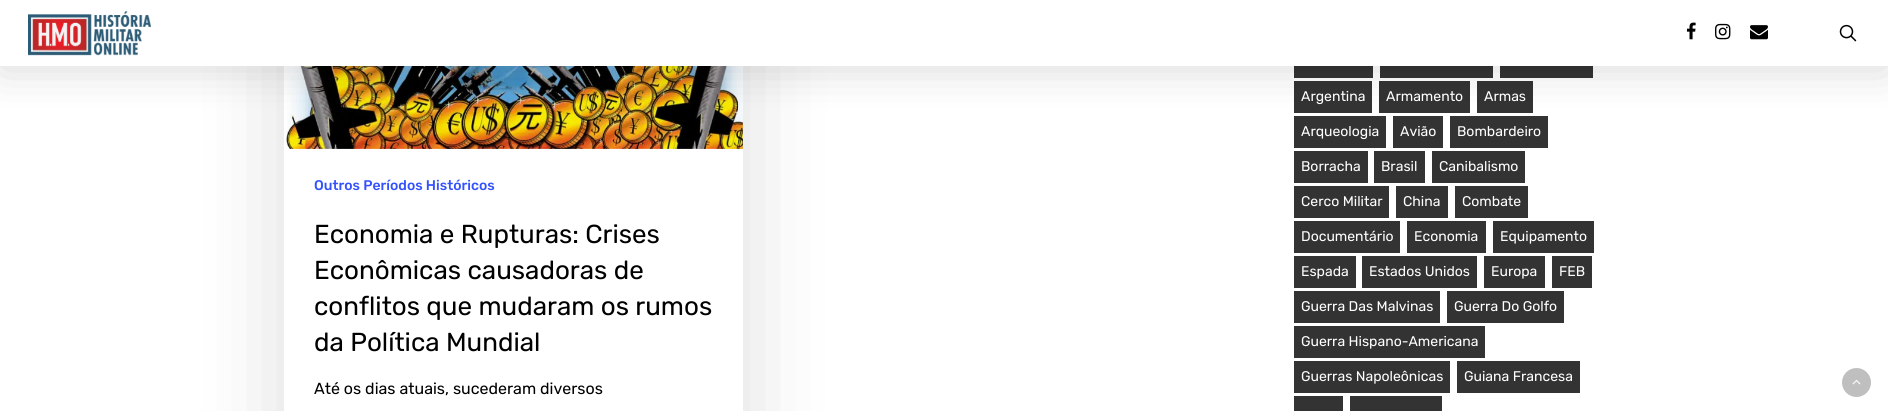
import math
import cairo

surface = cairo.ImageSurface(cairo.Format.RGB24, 1888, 411)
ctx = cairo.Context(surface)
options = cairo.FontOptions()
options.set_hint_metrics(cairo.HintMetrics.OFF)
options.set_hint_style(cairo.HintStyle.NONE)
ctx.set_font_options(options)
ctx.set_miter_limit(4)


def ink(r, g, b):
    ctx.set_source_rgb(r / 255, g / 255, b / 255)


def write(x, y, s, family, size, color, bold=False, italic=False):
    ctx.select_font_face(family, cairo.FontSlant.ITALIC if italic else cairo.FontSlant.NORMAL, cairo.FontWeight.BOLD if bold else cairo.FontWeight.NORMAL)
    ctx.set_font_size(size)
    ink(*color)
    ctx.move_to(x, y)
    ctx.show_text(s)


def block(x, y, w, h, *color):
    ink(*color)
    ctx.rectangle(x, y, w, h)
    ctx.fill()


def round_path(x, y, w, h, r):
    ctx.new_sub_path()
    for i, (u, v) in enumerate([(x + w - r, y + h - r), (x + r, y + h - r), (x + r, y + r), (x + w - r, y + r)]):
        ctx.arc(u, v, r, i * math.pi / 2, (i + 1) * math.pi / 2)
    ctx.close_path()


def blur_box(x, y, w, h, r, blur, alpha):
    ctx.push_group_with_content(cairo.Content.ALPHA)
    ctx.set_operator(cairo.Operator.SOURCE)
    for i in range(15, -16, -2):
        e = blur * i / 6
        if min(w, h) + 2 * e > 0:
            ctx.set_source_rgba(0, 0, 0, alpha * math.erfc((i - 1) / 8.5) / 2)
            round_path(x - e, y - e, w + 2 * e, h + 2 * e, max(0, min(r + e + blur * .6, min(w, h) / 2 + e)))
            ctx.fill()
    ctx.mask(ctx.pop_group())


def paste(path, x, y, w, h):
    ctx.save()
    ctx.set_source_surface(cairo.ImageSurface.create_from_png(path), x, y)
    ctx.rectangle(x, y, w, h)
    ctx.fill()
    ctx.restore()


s1 = dict(family="Rubik Medium", size=14, color=(52, 82, 255))
s2 = dict(family="Rubik", size=26, color=(0, 0, 0))
s3 = dict(family="Rubik", size=16, color=(0, 0, 0))
s4 = dict(family="Rubik", size=14, color=(255, 255, 255))

ink(255, 255, 255)
ctx.paint()
ctx.save()
ctx.set_fill_rule(cairo.FillRule.EVEN_ODD)
ctx.new_path()
ctx.move_to(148, 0)
ctx.line_to(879, 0)
ctx.line_to(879, 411)
ctx.line_to(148, 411)
ctx.close_path()
ctx.move_to(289, -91)
ctx.line_to(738, -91)
ctx.curve_to(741, -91, 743, -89, 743, -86)
ctx.line_to(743, 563)
ctx.curve_to(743, 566, 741, 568, 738, 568)
ctx.line_to(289, 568)
ctx.curve_to(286, 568, 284, 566, 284, 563)
ctx.line_to(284, -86)
ctx.curve_to(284, -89, 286, -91, 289, -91)
ctx.close_path()
ctx.clip()
ink(0, 0, 0)
blur_box(284, -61, 459, 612, 5, 45, 0.14)
ctx.restore()
paste("pic6.png", 285, 66, 458, 83)
block(1294, 66, 79, 12, 51, 51, 51)
block(1380, 66, 113, 12, 51, 51, 51)
block(1500, 66, 93, 12, 51, 51, 51)
block(1294, 81, 78, 32, 51, 51, 51)
block(1379, 81, 91, 32, 51, 51, 51)
block(1477, 81, 56, 32, 51, 51, 51)
block(1294, 116, 92, 32, 51, 51, 51)
block(1393, 116, 50, 32, 51, 51, 51)
block(1450, 116, 98, 32, 51, 51, 51)
ink(0, 0, 0)
blur_box(0, 3, 1888, 66, 0, 22.5, 0.15)
block(0, 0, 1888, 66, 255, 255, 255)
paste("pic1.png", 28, 11, 123, 45)
paste("pic2.png", 1686, 22, 10, 18)
paste("pic3.png", 1715, 23, 16, 17)
paste("pic4.png", 1750, 25, 18, 15)
paste("pic5.png", 1839, 24, 18, 18)
write(314, 190, "Outros Períodos Históricos", **s1)
write(314, 243, "Economia e Rupturas: Crises", **s2)
write(314, 279, "Econômicas causadoras de", **s2)
write(314, 315, "conflitos que mudaram os rumos", **s2)
write(314, 351, "da Política Mundial", **s2)
write(314, 394, "Até os dias atuais, sucederam diversos", **s3)
write(1301, 101, "Argentina", **s4)
write(1386, 101, "Armamento", **s4)
write(1484, 101, "Armas", **s4)
write(1301, 136, "Arqueologia", **s4)
write(1400, 136, "Avião", **s4)
write(1457, 136, "Bombardeiro", **s4)
block(1294, 151, 74, 32, 51, 51, 51)
write(1301, 171, "Borracha", **s4)
block(1374, 151, 51, 32, 51, 51, 51)
write(1381, 171, "Brasil", **s4)
block(1432, 151, 93, 32, 51, 51, 51)
write(1439, 171, "Canibalismo", **s4)
block(1294, 186, 95, 32, 51, 51, 51)
write(1301, 206, "Cerco Militar", **s4)
block(1396, 186, 52, 32, 51, 51, 51)
write(1403, 206, "China", **s4)
block(1455, 186, 73, 32, 51, 51, 51)
write(1462, 206, "Combate", **s4)
block(1294, 221, 106, 32, 51, 51, 51)
write(1301, 241, "Documentário", **s4)
block(1407, 221, 79, 32, 51, 51, 51)
write(1414, 241, "Economia", **s4)
block(1493, 221, 101, 32, 51, 51, 51)
write(1500, 241, "Equipamento", **s4)
block(1294, 256, 62, 32, 51, 51, 51)
write(1301, 276, "Espada", **s4)
block(1362, 256, 115, 32, 51, 51, 51)
write(1369, 276, "Estados Unidos", **s4)
block(1484, 256, 61, 32, 51, 51, 51)
write(1491, 276, "Europa", **s4)
block(1552, 256, 40, 32, 51, 51, 51)
write(1559, 276, "FEB", **s4)
block(1294, 291, 146, 32, 51, 51, 51)
write(1301, 311, "Guerra Das Malvinas", **s4)
block(1447, 291, 117, 32, 51, 51, 51)
write(1454, 311, "Guerra Do Golfo", **s4)
block(1294, 326, 191, 32, 51, 51, 51)
write(1301, 346, "Guerra Hispano-Americana", **s4)
block(1294, 361, 156, 32, 51, 51, 51)
write(1301, 381, "Guerras Napoleônicas", **s4)
block(1457, 361, 123, 32, 51, 51, 51)
write(1464, 381, "Guiana Francesa", **s4)
block(1294, 396, 49, 15, 51, 51, 51)
block(1350, 396, 92, 15, 51, 51, 51)
ink(191, 191, 191)
ctx.new_path()
ctx.arc(1856.5, 382.5, 14.5, 0, 2 * math.pi)
ctx.fill()
paste("pic7.png", 1852, 380, 9, 5)
surface.write_to_png("screenshot.png")
